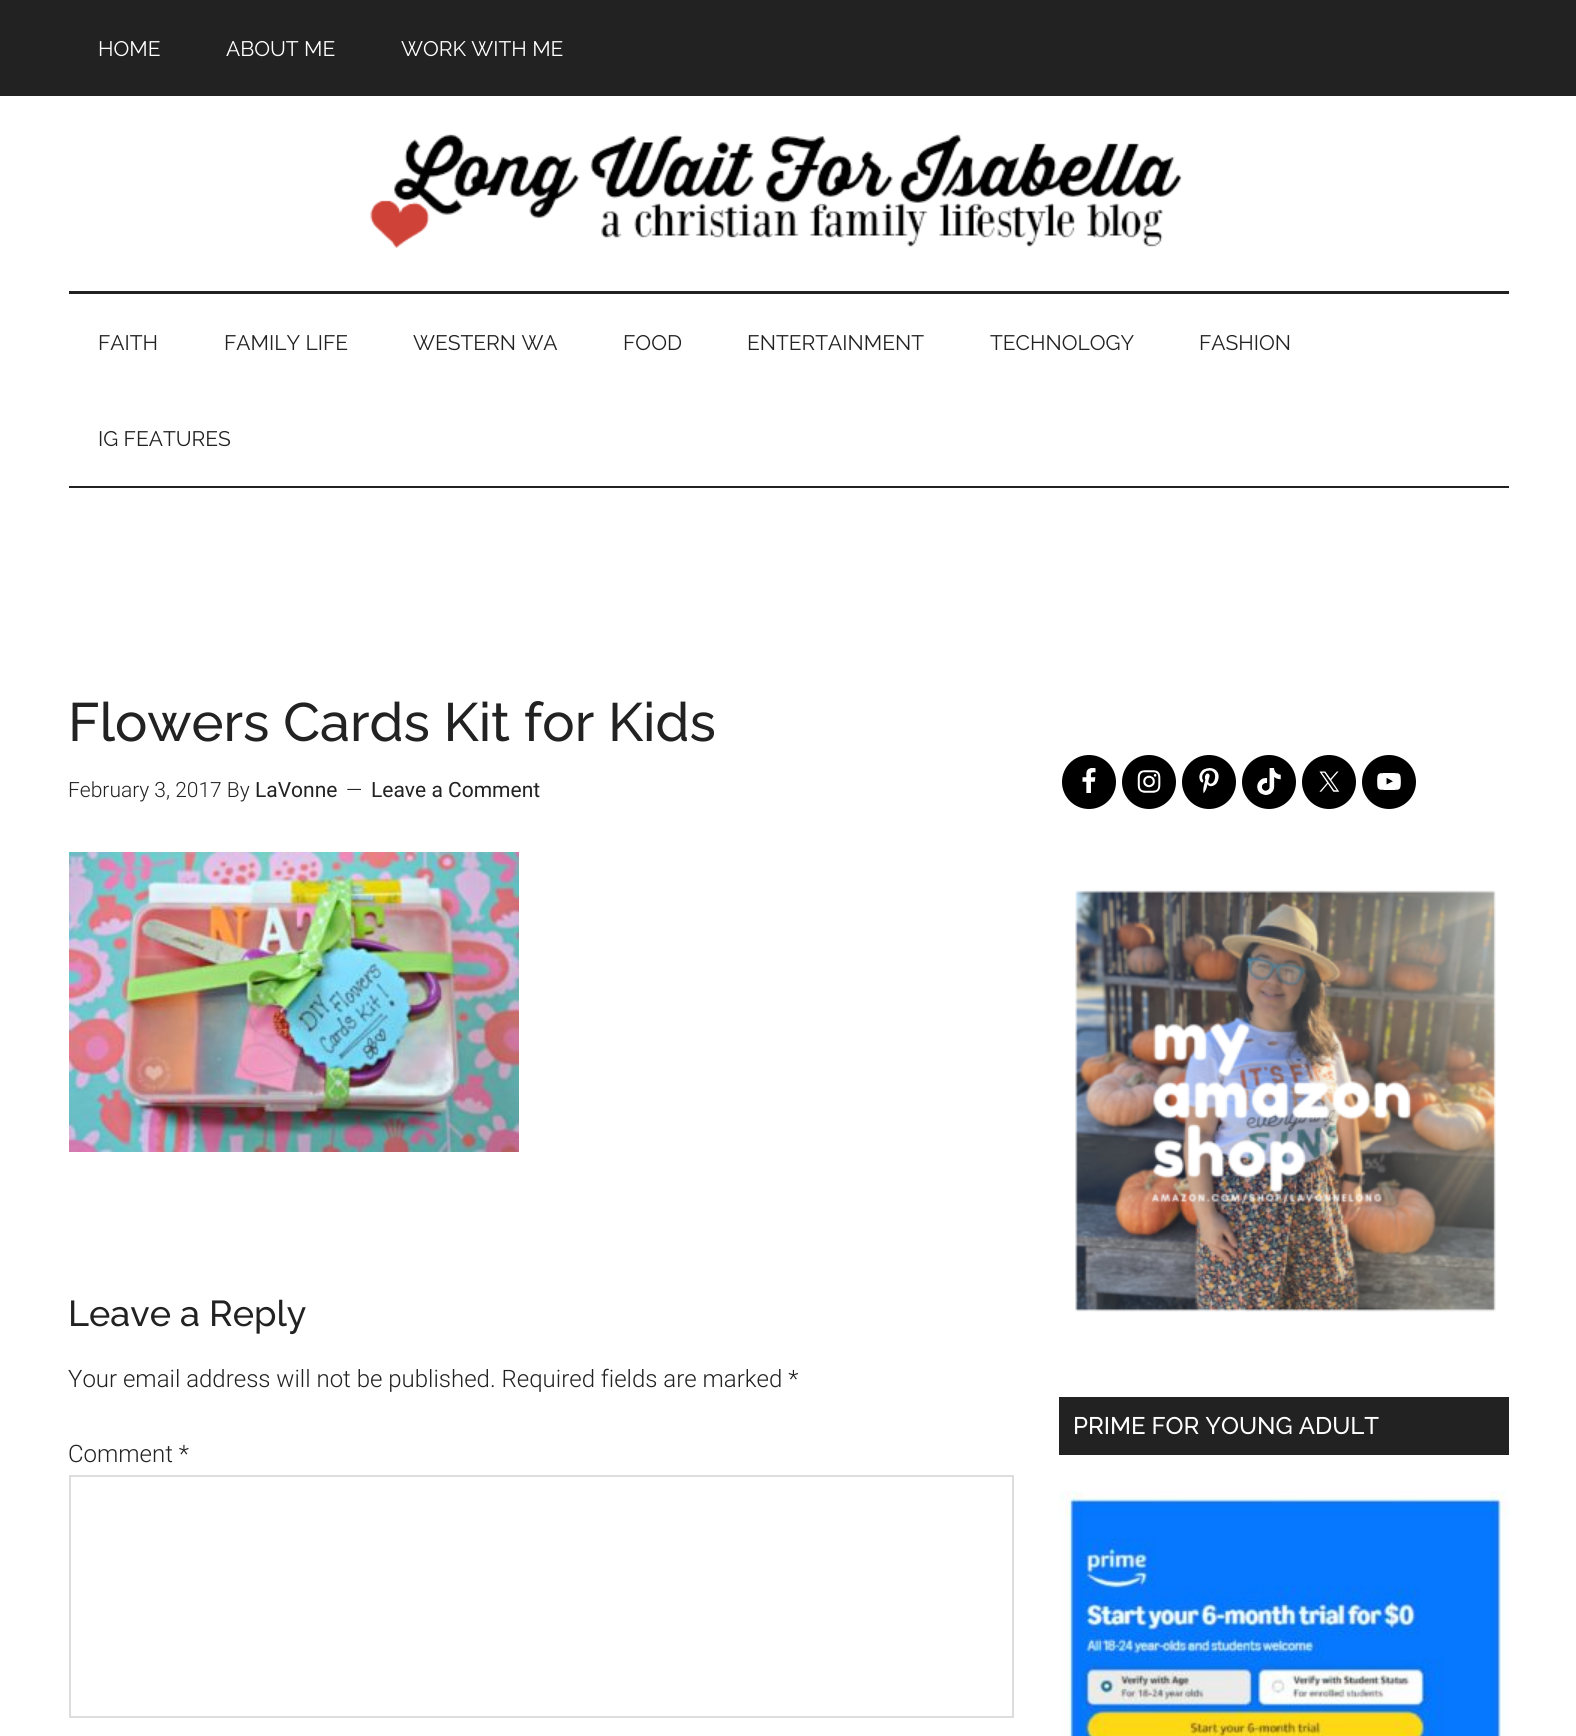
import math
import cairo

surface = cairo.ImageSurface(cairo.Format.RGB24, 1576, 1736)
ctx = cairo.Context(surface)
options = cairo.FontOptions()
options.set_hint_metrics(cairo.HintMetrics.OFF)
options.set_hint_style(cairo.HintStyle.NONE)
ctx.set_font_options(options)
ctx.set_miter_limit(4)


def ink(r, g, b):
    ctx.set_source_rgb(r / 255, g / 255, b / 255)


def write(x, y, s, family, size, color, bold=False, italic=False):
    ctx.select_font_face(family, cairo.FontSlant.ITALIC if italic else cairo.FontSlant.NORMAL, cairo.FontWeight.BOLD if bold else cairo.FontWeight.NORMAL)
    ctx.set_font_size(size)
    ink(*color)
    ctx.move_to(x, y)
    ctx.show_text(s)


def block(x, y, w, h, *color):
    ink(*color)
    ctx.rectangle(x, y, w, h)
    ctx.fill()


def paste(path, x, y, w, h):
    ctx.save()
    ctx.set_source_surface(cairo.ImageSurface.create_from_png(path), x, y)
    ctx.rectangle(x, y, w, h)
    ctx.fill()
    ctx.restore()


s1 = dict(family="Raleway", size=21, color=(255, 255, 255))
s2 = dict(family="Raleway", size=21, color=(34, 34, 34))
s3 = dict(family="Raleway Medium", size=54, color=(34, 34, 34))
s4 = dict(family="Roboto Light", size=21, color=(34, 34, 34))
s5 = dict(family="Roboto", size=21, color=(34, 34, 34))
s6 = dict(family="Raleway Medium", size=36, color=(34, 34, 34))
s7 = dict(family="Roboto Light", size=24, color=(34, 34, 34))
s8 = dict(family="Raleway Medium", size=24, color=(255, 255, 255))

ink(255, 255, 255)
ctx.paint()
block(0, 0, 1576, 96, 34, 34, 34)
write(98, 56, "HOME", **s1)
write(226, 56, "ABOUT ME", **s1)
write(401, 56, "WORK WITH ME", **s1)
block(69, 291, 1440, 3, 34, 34, 34)
paste("pic1.png", 370, 134, 812, 114)
block(69, 486, 1440, 2, 34, 34, 34)
write(98, 350, "FAITH", **s2)
write(224, 350, "FAMILY LIFE", **s2)
write(413, 350, "WESTERN WA", **s2)
write(623, 350, "FOOD", **s2)
write(747, 350, "ENTERTAINMENT", **s2)
write(990, 350, "TECHNOLOGY", **s2)
write(1199, 350, "FASHION", **s2)
write(98, 446, "IG FEATURES", **s2)
write(68, 741, "Flowers Cards Kit for Kids", **s3)
write(68, 797, "February 3, 2017 By", **s4)
write(255, 797, "LaVonne", **s5)
write(346, 797, "—", **s4)
write(371, 797, "Leave a Comment", **s5)
paste("pic2.png", 69, 852, 450, 300)
write(68, 1326, "Leave a Reply", **s6)
write(68, 1387, "Your email address will not be published. Required fields are marked *", **s7)
write(68, 1462, "Comment *", **s7)
ctx.rectangle(70, 1476, 943, 241)
ink(221, 221, 221)
ctx.stroke()
ink(0, 0, 0)
ctx.arc(1089, 782, 27, 0, 2 * math.pi)
ctx.fill()
paste("pic3.png", 1082, 768, 14, 25)
ctx.arc(1149, 782, 27, 0, 2 * math.pi)
ctx.fill()
paste("pic4.png", 1137, 770, 24, 23)
ctx.arc(1209, 782, 27, 0, 2 * math.pi)
ctx.fill()
paste("pic5.png", 1199, 768, 20, 25)
ctx.arc(1269, 782, 27, 0, 2 * math.pi)
ctx.fill()
paste("pic6.png", 1257, 768, 24, 27)
ctx.arc(1329, 782, 27, 0, 2 * math.pi)
ctx.fill()
paste("pic7.png", 1319, 771, 21, 21)
ctx.arc(1389, 782, 27, 0, 2 * math.pi)
ctx.fill()
paste("pic8.png", 1377, 773, 24, 17)
paste("pic9.png", 1075, 890, 421, 422)
block(1059, 1397, 450, 58, 34, 34, 34)
write(1073, 1434, "PRIME FOR YOUNG ADULT", **s8)
paste("pic10.png", 1059, 1491, 450, 245)
surface.write_to_png("screenshot.png")
